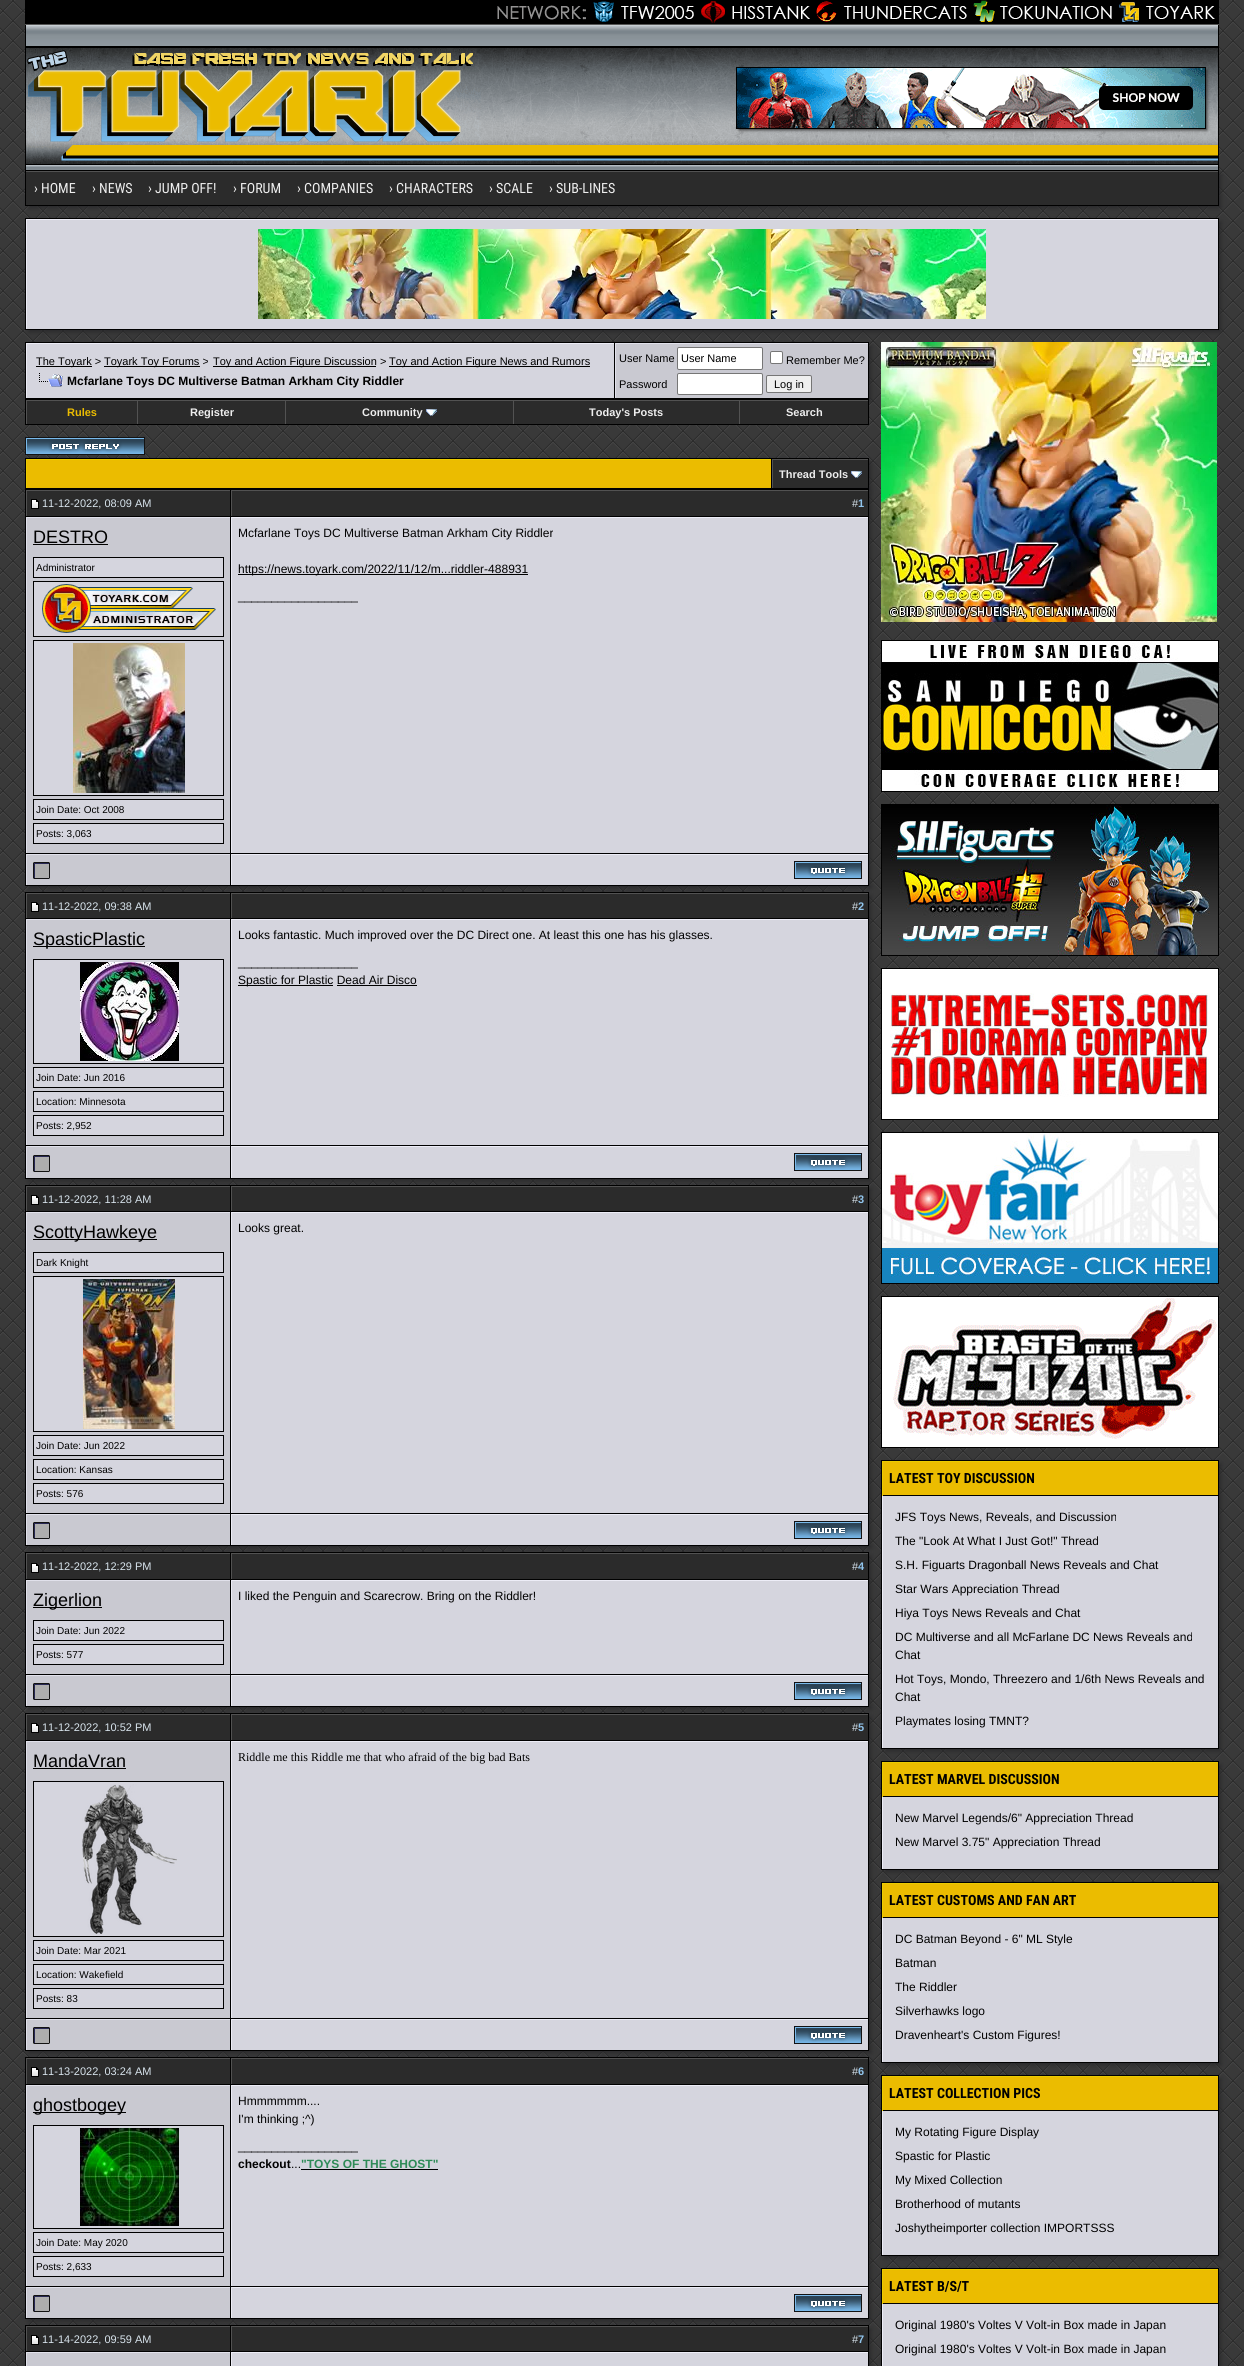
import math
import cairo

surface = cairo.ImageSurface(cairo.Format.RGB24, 1244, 2366)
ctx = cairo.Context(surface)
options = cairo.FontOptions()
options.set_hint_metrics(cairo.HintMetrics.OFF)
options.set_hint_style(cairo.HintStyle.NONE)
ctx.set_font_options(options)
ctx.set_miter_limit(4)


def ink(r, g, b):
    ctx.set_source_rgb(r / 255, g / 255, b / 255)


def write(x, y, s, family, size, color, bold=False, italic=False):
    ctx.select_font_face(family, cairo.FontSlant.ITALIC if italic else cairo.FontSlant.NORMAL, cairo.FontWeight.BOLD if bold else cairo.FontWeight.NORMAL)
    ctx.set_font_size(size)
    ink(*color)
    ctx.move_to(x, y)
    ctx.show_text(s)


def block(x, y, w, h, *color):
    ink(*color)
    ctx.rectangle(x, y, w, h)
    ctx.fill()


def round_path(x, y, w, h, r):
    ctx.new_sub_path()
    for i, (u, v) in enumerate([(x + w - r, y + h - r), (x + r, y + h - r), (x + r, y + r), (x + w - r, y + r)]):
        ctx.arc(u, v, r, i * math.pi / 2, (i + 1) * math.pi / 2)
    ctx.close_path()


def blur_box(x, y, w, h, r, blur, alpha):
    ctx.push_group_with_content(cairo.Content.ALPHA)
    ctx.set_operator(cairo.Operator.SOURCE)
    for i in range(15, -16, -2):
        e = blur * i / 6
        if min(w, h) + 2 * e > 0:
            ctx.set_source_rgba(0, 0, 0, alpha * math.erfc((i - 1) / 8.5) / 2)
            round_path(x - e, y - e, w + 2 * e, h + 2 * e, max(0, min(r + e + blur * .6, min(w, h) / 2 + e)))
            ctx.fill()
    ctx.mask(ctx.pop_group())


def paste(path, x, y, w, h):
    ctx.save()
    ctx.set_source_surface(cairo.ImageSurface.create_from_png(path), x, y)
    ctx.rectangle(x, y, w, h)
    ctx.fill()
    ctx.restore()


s1 = dict(family="Roboto Condensed", size=14, color=(238, 238, 238))
s2 = dict(family="Liberation Sans", size=11, color=(0, 0, 0))
s3 = dict(family="Liberation Sans", size=12, color=(0, 0, 0), bold=True)
s4 = dict(family="Liberation Sans", size=11, color=(235, 188, 0), bold=True)
s5 = dict(family="Liberation Sans", size=11, color=(238, 238, 238), bold=True)
s6 = dict(family="Liberation Sans", size=11, color=(216, 228, 237))
s7 = dict(family="Liberation Sans", size=11, color=(145, 197, 237), bold=True)
s8 = dict(family="Liberation Sans", size=18, color=(0, 0, 0))
s9 = dict(family="Liberation Sans", size=10, color=(0, 0, 0))
s10 = dict(family="Liberation Sans", size=12, color=(0, 0, 0))
s11 = dict(family="Liberation Serif", size=12, color=(0, 0, 0))
s12 = dict(family="Liberation Sans", size=12, color=(46, 139, 87), bold=True)
s13 = dict(family="Roboto Condensed", size=14, color=(0, 0, 0), bold=True)

ink(255, 255, 255)
ctx.paint()
paste("pic1.png", 0, 0, 1244, 2366)
block(25, 0, 1194, 24, 0, 0, 0)
block(25, 24, 1194, 1, 84, 84, 84)
paste("pic2.png", 497, 0, 718, 23)
paste("pic3.png", 585, 1, 109, 21)
paste("pic4.png", 700, 1, 110, 22)
paste("pic5.png", 815, 1, 152, 21)
paste("pic6.png", 26, 25, 1192, 145)
block(1218, 25, 1, 145, 0, 0, 0)
block(25, 25, 1, 145, 0, 0, 0)
paste("pic7.png", 26, 48, 455, 116)
ink(51, 51, 51)
blur_box(739, 70, 468, 60, 0, 1.5, 1)
ctx.rectangle(736.5, 67.5, 469, 61)
ink(0, 0, 0)
ctx.set_line_width(1)
ctx.stroke()
paste("pic8.png", 737, 68, 468, 60)
ink(41, 41, 43)
blur_box(29, 174, 1192, 34, 0, 2.5, 1)
block(26, 172, 1192, 33, 43, 43, 43)
block(26, 171, 1192, 1, 82, 82, 82)
ctx.rectangle(25.5, 170.5, 1193, 35)
ink(0, 0, 0)
ctx.stroke()
write(34, 193, "› HOME", **s1)
write(92, 193, "› NEWS", **s1)
write(148, 193, "› JUMP OFF!", **s1)
write(233, 193, "› FORUM", **s1)
write(297, 193, "› COMPANIES", **s1)
write(389, 193, "› CHARACTERS", **s1)
write(489, 193, "› SCALE", **s1)
write(549, 193, "› SUB-LINES", **s1)
ink(41, 41, 43)
blur_box(29, 222, 1192, 110, 0, 2.5, 1)
block(27, 220, 1191, 109, 213, 213, 222)
ctx.save()
ctx.rectangle(26, 219, 1192, 110)
ctx.clip()
ink(237, 237, 247)
ctx.set_fill_rule(cairo.FillRule.EVEN_ODD)
ctx.new_path()
ctx.move_to(-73, 120)
ctx.line_to(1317, 120)
ctx.line_to(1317, 428)
ctx.line_to(-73, 428)
ctx.close_path()
ctx.move_to(27, 220)
ctx.line_to(1219, 220)
ctx.line_to(1219, 330)
ctx.line_to(27, 330)
ctx.close_path()
ctx.fill()
ctx.restore()
ctx.rectangle(25.5, 218.5, 1193, 111)
ink(0, 0, 0)
ctx.stroke()
paste("pic9.png", 258, 229, 728, 90)
ink(41, 41, 43)
blur_box(29, 346, 842, 55, 0, 2.5, 1)
block(25, 342, 844, 83, 0, 0, 0)
block(27, 344, 587, 54, 213, 213, 222)
block(26, 343, 588, 1, 237, 237, 247)
block(26, 343, 1, 55, 237, 237, 247)
block(36, 366, 56, 1, 0, 0, 0)
write(36, 365, "The Toyark >", **s2)
block(104, 366, 96, 1, 0, 0, 0)
write(104, 365, "Toyark Toy Forums >", **s2)
block(213, 366, 163, 1, 0, 0, 0)
write(213, 365, "Toy and Action Figure Discussion >", **s2)
block(389, 366, 201, 1, 0, 0, 0)
write(389, 365, "Toy and Action Figure News and Rumors", **s2)
paste("pic10.png", 39, 373, 24, 14)
write(67, 385, "Mcfarlane Toys DC Multiverse Batman Arkham City Riddler", **s3)
block(616, 344, 252, 54, 201, 201, 209)
block(615, 343, 253, 1, 225, 225, 235)
block(615, 343, 1, 55, 225, 225, 235)
write(619, 362, "User Name", **s2)
ink(255, 255, 255)
round_path(677.5, 347.5, 85, 22, 1.5)
ctx.fill_preserve()
ink(118, 118, 118)
ctx.stroke()
write(681, 362, "User Name", **s2)
ink(255, 255, 255)
round_path(770.5, 351.5, 12, 12, 1.5)
ctx.fill_preserve()
ink(118, 118, 118)
ctx.stroke()
write(786, 364, "Remember Me?", **s2)
write(619, 388, "Password", **s2)
ink(255, 255, 255)
round_path(677.5, 373.5, 85, 21, 1.5)
ctx.fill_preserve()
ink(118, 118, 118)
ctx.stroke()
ink(239, 239, 239)
round_path(766.5, 375.5, 45, 17, 1.5)
ctx.fill_preserve()
ink(118, 118, 118)
ctx.stroke()
write(774, 388, "Log in", **s2)
block(27, 401, 110, 23, 43, 43, 43)
block(26, 400, 842, 1, 82, 82, 82)
block(26, 400, 1, 24, 82, 82, 82)
write(67, 416, "Rules", **s4)
block(138, 401, 147, 23, 43, 43, 43)
block(137, 400, 1, 24, 82, 82, 82)
write(190, 416, "Register", **s5)
block(286, 401, 227, 23, 43, 43, 43)
block(285, 400, 1, 24, 82, 82, 82)
write(362, 416, "Community", **s5)
paste("pic11.png", 426, 409, 11, 7)
block(514, 401, 225, 23, 43, 43, 43)
block(513, 400, 1, 24, 82, 82, 82)
write(589, 416, "Today's Posts", **s5)
block(740, 401, 128, 23, 43, 43, 43)
block(739, 400, 1, 24, 82, 82, 82)
write(786, 416, "Search", **s5)
ink(41, 41, 43)
blur_box(29, 462, 842, 29, 0, 2.5, 1)
paste("pic12.png", 25, 437, 120, 18)
block(25, 458, 844, 31, 0, 0, 0)
block(27, 460, 744, 28, 235, 188, 0)
block(26, 459, 745, 1, 235, 203, 0)
block(26, 459, 1, 29, 235, 203, 0)
block(773, 460, 95, 28, 43, 43, 43)
block(772, 459, 96, 1, 82, 82, 82)
block(772, 459, 1, 29, 82, 82, 82)
write(779, 478, "Thread Tools", **s5)
paste("pic11.png", 851, 471, 11, 7)
ink(41, 41, 43)
blur_box(29, 493, 842, 395, 0, 2.5, 1)
block(25, 489, 844, 397, 0, 0, 0)
block(27, 491, 203, 25, 43, 43, 43)
block(26, 490, 204, 1, 82, 82, 82)
block(26, 490, 1, 26, 82, 82, 82)
paste("pic13.png", 31, 499, 8, 10)
write(42, 507, "11-12-2022, 08:09 AM", **s6)
block(232, 491, 636, 25, 43, 43, 43)
block(231, 490, 637, 1, 82, 82, 82)
block(231, 490, 1, 26, 82, 82, 82)
write(852, 507, "#", **s6)
write(858, 507, "1", **s7)
block(27, 518, 203, 335, 201, 201, 209)
block(26, 517, 204, 1, 225, 225, 235)
block(26, 517, 1, 336, 225, 225, 235)
write(33, 543, "DESTRO", **s8)
block(33, 544, 75, 1, 0, 0, 0)
ink(213, 213, 222)
ctx.rectangle(33.5, 557.5, 190, 20)
ctx.fill_preserve()
ink(0, 0, 0)
ctx.stroke()
write(36, 571, "Administrator", **s9)
ink(213, 213, 222)
ctx.rectangle(33.5, 581.5, 190, 55)
ctx.fill_preserve()
ink(0, 0, 0)
ctx.stroke()
paste("pic14.png", 42, 584, 174, 49)
ink(213, 213, 222)
ctx.rectangle(33.5, 640.5, 190, 155)
ctx.fill_preserve()
ink(0, 0, 0)
ctx.stroke()
paste("pic15.png", 73, 643, 112, 150)
ink(213, 213, 222)
ctx.rectangle(33.5, 799.5, 190, 20)
ctx.fill_preserve()
ink(0, 0, 0)
ctx.stroke()
write(36, 813, "Join Date: Oct 2008", **s9)
ink(213, 213, 222)
ctx.rectangle(33.5, 823.5, 190, 20)
ctx.fill_preserve()
ink(0, 0, 0)
ctx.stroke()
write(36, 837, "Posts: 3,063", **s9)
block(232, 518, 636, 335, 213, 213, 222)
block(231, 517, 637, 1, 237, 237, 247)
block(231, 517, 1, 336, 237, 237, 247)
write(238, 537, "Mcfarlane Toys DC Multiverse Batman Arkham City Riddler", **s10)
block(238, 574, 290, 1, 0, 0, 0)
write(238, 573, "https://news.toyark.com/2022/11/12/m...riddler-488931", **s10)
write(238, 600, "__________________", **s10)
block(27, 855, 203, 30, 201, 201, 209)
block(26, 854, 204, 1, 225, 225, 235)
block(26, 854, 1, 31, 225, 225, 235)
paste("pic16.png", 33, 862, 17, 17)
block(232, 855, 636, 30, 213, 213, 222)
block(231, 854, 637, 1, 237, 237, 247)
block(231, 854, 1, 31, 237, 237, 247)
paste("pic17.png", 794, 861, 68, 18)
ink(41, 41, 43)
blur_box(29, 896, 842, 285, 0, 2.5, 1)
block(25, 892, 844, 287, 0, 0, 0)
block(27, 894, 203, 24, 43, 43, 43)
block(26, 893, 204, 1, 82, 82, 82)
block(26, 893, 1, 25, 82, 82, 82)
paste("pic13.png", 31, 902, 8, 10)
write(42, 910, "11-12-2022, 09:38 AM", **s6)
block(232, 894, 636, 24, 43, 43, 43)
block(231, 893, 637, 1, 82, 82, 82)
block(231, 893, 1, 25, 82, 82, 82)
write(852, 910, "#", **s6)
write(858, 910, "2", **s7)
block(27, 920, 203, 225, 201, 201, 209)
block(26, 919, 204, 1, 225, 225, 235)
block(26, 919, 1, 226, 225, 225, 235)
block(33, 946, 112, 1, 0, 0, 0)
write(33, 945, "SpasticPlastic", **s8)
ink(213, 213, 222)
ctx.rectangle(33.5, 959.5, 190, 104)
ctx.fill_preserve()
ink(0, 0, 0)
ctx.stroke()
paste("pic18.png", 80, 962, 99, 99)
ink(213, 213, 222)
ctx.rectangle(33.5, 1067.5, 190, 20)
ctx.fill_preserve()
ink(0, 0, 0)
ctx.stroke()
write(36, 1081, "Join Date: Jun 2016", **s9)
ink(213, 213, 222)
ctx.rectangle(33.5, 1091.5, 190, 20)
ctx.fill_preserve()
ink(0, 0, 0)
ctx.stroke()
write(36, 1105, "Location: Minnesota", **s9)
ink(213, 213, 222)
ctx.rectangle(33.5, 1115.5, 190, 20)
ctx.fill_preserve()
ink(0, 0, 0)
ctx.stroke()
write(36, 1129, "Posts: 2,952", **s9)
block(232, 920, 636, 225, 213, 213, 222)
block(231, 919, 637, 1, 237, 237, 247)
block(231, 919, 1, 226, 237, 237, 247)
write(238, 939, "Looks fantastic. Much improved over the DC Direct one. At least this one has his glasses.", **s10)
write(238, 966, "__________________", **s10)
block(238, 985, 95, 1, 0, 0, 0)
write(238, 984, "Spastic for Plastic Dead Air Disco", **s10)
block(337, 985, 80, 1, 0, 0, 0)
block(27, 1147, 203, 31, 201, 201, 209)
block(26, 1146, 204, 1, 225, 225, 235)
block(26, 1146, 1, 32, 225, 225, 235)
paste("pic16.png", 33, 1155, 17, 17)
block(232, 1147, 636, 31, 213, 213, 222)
block(231, 1146, 637, 1, 237, 237, 247)
block(231, 1146, 1, 32, 237, 237, 247)
paste("pic17.png", 794, 1153, 68, 18)
ink(41, 41, 43)
blur_box(29, 1189, 842, 359, 0, 2.5, 1)
block(25, 1185, 844, 361, 0, 0, 0)
block(27, 1187, 203, 24, 43, 43, 43)
block(26, 1186, 204, 1, 82, 82, 82)
block(26, 1186, 1, 25, 82, 82, 82)
paste("pic13.png", 31, 1195, 8, 10)
write(42, 1203, "11-12-2022, 11:28 AM", **s6)
block(232, 1187, 636, 24, 43, 43, 43)
block(231, 1186, 637, 1, 82, 82, 82)
block(231, 1186, 1, 25, 82, 82, 82)
write(852, 1203, "#", **s6)
write(858, 1203, "3", **s7)
block(27, 1213, 203, 300, 201, 201, 209)
block(26, 1212, 204, 1, 225, 225, 235)
block(26, 1212, 1, 301, 225, 225, 235)
block(33, 1239, 124, 1, 0, 0, 0)
write(33, 1238, "ScottyHawkeye", **s8)
ink(213, 213, 222)
ctx.rectangle(33.5, 1252.5, 190, 20)
ctx.fill_preserve()
ink(0, 0, 0)
ctx.stroke()
write(36, 1266, "Dark Knight", **s9)
ink(213, 213, 222)
ctx.rectangle(33.5, 1276.5, 190, 155)
ctx.fill_preserve()
ink(0, 0, 0)
ctx.stroke()
paste("pic19.png", 83, 1279, 92, 150)
ink(213, 213, 222)
ctx.rectangle(33.5, 1435.5, 190, 20)
ctx.fill_preserve()
ink(0, 0, 0)
ctx.stroke()
write(36, 1449, "Join Date: Jun 2022", **s9)
ink(213, 213, 222)
ctx.rectangle(33.5, 1459.5, 190, 20)
ctx.fill_preserve()
ink(0, 0, 0)
ctx.stroke()
write(36, 1473, "Location: Kansas", **s9)
ink(213, 213, 222)
ctx.rectangle(33.5, 1483.5, 190, 20)
ctx.fill_preserve()
ink(0, 0, 0)
ctx.stroke()
write(36, 1497, "Posts: 576", **s9)
block(232, 1213, 636, 300, 213, 213, 222)
block(231, 1212, 637, 1, 237, 237, 247)
block(231, 1212, 1, 301, 237, 237, 247)
write(238, 1232, "Looks great.", **s10)
block(27, 1515, 203, 30, 201, 201, 209)
block(26, 1514, 204, 1, 225, 225, 235)
block(26, 1514, 1, 31, 225, 225, 235)
paste("pic16.png", 33, 1522, 17, 17)
block(232, 1515, 636, 30, 213, 213, 222)
block(231, 1514, 637, 1, 237, 237, 247)
block(231, 1514, 1, 31, 237, 237, 247)
paste("pic17.png", 794, 1521, 68, 18)
ink(41, 41, 43)
blur_box(29, 1556, 842, 153, 0, 2.5, 1)
block(25, 1552, 844, 155, 0, 0, 0)
block(27, 1554, 203, 25, 43, 43, 43)
block(26, 1553, 204, 1, 82, 82, 82)
block(26, 1553, 1, 26, 82, 82, 82)
paste("pic13.png", 31, 1563, 8, 10)
write(42, 1570, "11-12-2022, 12:29 PM", **s6)
block(232, 1554, 636, 25, 43, 43, 43)
block(231, 1553, 637, 1, 82, 82, 82)
block(231, 1553, 1, 26, 82, 82, 82)
write(852, 1570, "#", **s6)
write(858, 1570, "4", **s7)
block(27, 1581, 203, 93, 201, 201, 209)
block(26, 1580, 204, 1, 225, 225, 235)
block(26, 1580, 1, 94, 225, 225, 235)
block(33, 1607, 69, 1, 0, 0, 0)
write(33, 1606, "Zigerlion", **s8)
ink(213, 213, 222)
ctx.rectangle(33.5, 1620.5, 190, 20)
ctx.fill_preserve()
ink(0, 0, 0)
ctx.stroke()
write(36, 1634, "Join Date: Jun 2022", **s9)
ink(213, 213, 222)
ctx.rectangle(33.5, 1644.5, 190, 20)
ctx.fill_preserve()
ink(0, 0, 0)
ctx.stroke()
write(36, 1658, "Posts: 577", **s9)
block(232, 1581, 636, 93, 213, 213, 222)
block(231, 1580, 637, 1, 237, 237, 247)
block(231, 1580, 1, 94, 237, 237, 247)
write(238, 1600, "I liked the Penguin and Scarecrow. Bring on the Riddler!", **s10)
block(27, 1676, 203, 30, 201, 201, 209)
block(26, 1675, 204, 1, 225, 225, 235)
block(26, 1675, 1, 31, 225, 225, 235)
paste("pic16.png", 33, 1683, 17, 17)
block(232, 1676, 636, 30, 213, 213, 222)
block(231, 1675, 637, 1, 237, 237, 247)
block(231, 1675, 1, 31, 237, 237, 247)
paste("pic17.png", 794, 1682, 68, 18)
ink(41, 41, 43)
blur_box(29, 1717, 842, 336, 0, 2.5, 1)
block(25, 1713, 844, 338, 0, 0, 0)
block(27, 1715, 203, 25, 43, 43, 43)
block(26, 1714, 204, 1, 82, 82, 82)
block(26, 1714, 1, 26, 82, 82, 82)
paste("pic13.png", 31, 1723, 8, 10)
write(42, 1731, "11-12-2022, 10:52 PM", **s6)
block(232, 1715, 636, 25, 43, 43, 43)
block(231, 1714, 637, 1, 82, 82, 82)
block(231, 1714, 1, 26, 82, 82, 82)
write(852, 1731, "#", **s6)
write(858, 1731, "5", **s7)
block(27, 1742, 203, 276, 201, 201, 209)
block(26, 1741, 204, 1, 225, 225, 235)
block(26, 1741, 1, 277, 225, 225, 235)
write(33, 1767, "MandaVran", **s8)
block(33, 1768, 93, 1, 0, 0, 0)
ink(213, 213, 222)
ctx.rectangle(33.5, 1781.5, 190, 155)
ctx.fill_preserve()
ink(0, 0, 0)
ctx.stroke()
paste("pic20.png", 82, 1784, 95, 150)
ink(213, 213, 222)
ctx.rectangle(33.5, 1940.5, 190, 20)
ctx.fill_preserve()
ink(0, 0, 0)
ctx.stroke()
write(36, 1954, "Join Date: Mar 2021", **s9)
ink(213, 213, 222)
ctx.rectangle(33.5, 1964.5, 190, 20)
ctx.fill_preserve()
ink(0, 0, 0)
ctx.stroke()
write(36, 1978, "Location: Wakefield", **s9)
ink(213, 213, 222)
ctx.rectangle(33.5, 1988.5, 190, 20)
ctx.fill_preserve()
ink(0, 0, 0)
ctx.stroke()
write(36, 2002, "Posts: 83", **s9)
block(232, 1742, 636, 276, 213, 213, 222)
block(231, 1741, 637, 1, 237, 237, 247)
block(231, 1741, 1, 277, 237, 237, 247)
write(238, 1761, "Riddle me this Riddle me that who afraid of the big bad Bats", **s11)
block(27, 2020, 203, 30, 201, 201, 209)
block(26, 2019, 204, 1, 225, 225, 235)
block(26, 2019, 1, 31, 225, 225, 235)
paste("pic16.png", 33, 2027, 17, 17)
block(232, 2020, 636, 30, 213, 213, 222)
block(231, 2019, 637, 1, 237, 237, 247)
block(231, 2019, 1, 31, 237, 237, 247)
paste("pic17.png", 794, 2026, 68, 18)
ink(41, 41, 43)
blur_box(29, 2061, 842, 260, 0, 2.5, 1)
block(25, 2057, 844, 262, 0, 0, 0)
block(27, 2059, 203, 25, 43, 43, 43)
block(26, 2058, 204, 1, 82, 82, 82)
block(26, 2058, 1, 26, 82, 82, 82)
paste("pic13.png", 31, 2067, 8, 10)
write(42, 2075, "11-13-2022, 03:24 AM", **s6)
block(232, 2059, 636, 25, 43, 43, 43)
block(231, 2058, 637, 1, 82, 82, 82)
block(231, 2058, 1, 26, 82, 82, 82)
write(852, 2075, "#", **s6)
write(858, 2075, "6", **s7)
block(27, 2086, 203, 200, 201, 201, 209)
block(26, 2085, 204, 1, 225, 225, 235)
block(26, 2085, 1, 201, 225, 225, 235)
block(33, 2112, 93, 1, 0, 0, 0)
write(33, 2111, "ghostbogey", **s8)
ink(213, 213, 222)
ctx.rectangle(33.5, 2125.5, 190, 103)
ctx.fill_preserve()
ink(0, 0, 0)
ctx.stroke()
paste("pic21.png", 80, 2128, 99, 98)
ink(213, 213, 222)
ctx.rectangle(33.5, 2232.5, 190, 20)
ctx.fill_preserve()
ink(0, 0, 0)
ctx.stroke()
write(36, 2246, "Join Date: May 2020", **s9)
ink(213, 213, 222)
ctx.rectangle(33.5, 2256.5, 190, 20)
ctx.fill_preserve()
ink(0, 0, 0)
ctx.stroke()
write(36, 2270, "Posts: 2,633", **s9)
block(232, 2086, 636, 200, 213, 213, 222)
block(231, 2085, 637, 1, 237, 237, 247)
block(231, 2085, 1, 201, 237, 237, 247)
write(238, 2105, "Hmmmmmm....", **s10)
write(238, 2123, "I'm thinking ;^)", **s10)
write(238, 2150, "__________________", **s10)
write(238, 2168, "checkout", **s3)
write(291, 2168, "...", **s10)
write(301, 2168, "\"TOYS OF THE GHOST\"", **s12)
block(301, 2169, 137, 1, 0, 0, 0)
block(27, 2288, 203, 30, 201, 201, 209)
block(26, 2287, 204, 1, 225, 225, 235)
block(26, 2287, 1, 31, 225, 225, 235)
paste("pic16.png", 33, 2295, 17, 17)
block(232, 2288, 636, 30, 213, 213, 222)
block(231, 2287, 637, 1, 237, 237, 247)
block(231, 2287, 1, 31, 237, 237, 247)
paste("pic17.png", 794, 2294, 68, 18)
ink(41, 41, 43)
blur_box(29, 2329, 842, 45, 0, 2.5, 1)
block(25, 2325, 844, 41, 0, 0, 0)
block(27, 2327, 203, 24, 43, 43, 43)
block(26, 2326, 204, 1, 82, 82, 82)
block(26, 2326, 1, 25, 82, 82, 82)
paste("pic13.png", 31, 2335, 8, 10)
write(42, 2343, "11-14-2022, 09:59 AM", **s6)
block(232, 2327, 636, 24, 43, 43, 43)
block(231, 2326, 637, 1, 82, 82, 82)
block(231, 2326, 1, 25, 82, 82, 82)
write(852, 2343, "#", **s6)
write(858, 2343, "7", **s7)
block(27, 2353, 203, 13, 201, 201, 209)
block(26, 2352, 204, 1, 225, 225, 235)
block(26, 2352, 1, 14, 225, 225, 235)
block(232, 2353, 636, 13, 213, 213, 222)
block(231, 2352, 637, 1, 237, 237, 247)
block(231, 2352, 1, 14, 237, 237, 247)
paste("pic22.png", 881, 342, 336, 280)
ctx.rectangle(881.5, 640.5, 337, 151)
ink(0, 0, 0)
ctx.stroke()
paste("pic23.png", 882, 641, 336, 150)
ctx.rectangle(881.5, 804.5, 337, 151)
ctx.stroke()
paste("pic24.png", 882, 805, 336, 150)
ctx.rectangle(881.5, 968.5, 337, 151)
ctx.stroke()
paste("pic25.png", 882, 969, 336, 150)
ctx.rectangle(881.5, 1132.5, 337, 151)
ctx.stroke()
paste("pic26.png", 882, 1133, 336, 150)
ctx.rectangle(881.5, 1296.5, 337, 151)
ctx.stroke()
paste("pic27.png", 882, 1297, 336, 150)
ink(41, 41, 43)
blur_box(885, 1464, 336, 287, 0, 2.5, 1)
block(881, 1460, 338, 289, 0, 0, 0)
block(883, 1462, 335, 33, 235, 188, 0)
block(882, 1461, 336, 1, 235, 203, 0)
block(882, 1461, 1, 35, 235, 203, 0)
write(889, 1483, "LATEST TOY DISCUSSION", **s13)
block(882, 1496, 336, 6, 213, 213, 222)
block(882, 1496, 1, 252, 237, 237, 247)
block(883, 1502, 335, 246, 213, 213, 222)
write(895, 1521, "JFS Toys News, Reveals, and Discussion", **s10)
write(895, 1545, "The \"Look At What I Just Got!\" Thread", **s10)
write(895, 1569, "S.H. Figuarts Dragonball News Reveals and Chat", **s10)
write(895, 1593, "Star Wars Appreciation Thread", **s10)
write(895, 1617, "Hiya Toys News Reveals and Chat", **s10)
write(895, 1641, "DC Multiverse and all McFarlane DC News Reveals and", **s10)
write(895, 1659, "Chat", **s10)
write(895, 1683, "Hot Toys, Mondo, Threezero and 1/6th News Reveals and", **s10)
write(895, 1701, "Chat", **s10)
write(895, 1725, "Playmates losing TMNT?", **s10)
ink(41, 41, 43)
blur_box(885, 1765, 336, 107, 0, 2.5, 1)
block(881, 1761, 338, 109, 0, 0, 0)
block(883, 1763, 335, 33, 235, 188, 0)
block(882, 1762, 336, 1, 235, 203, 0)
block(882, 1762, 1, 35, 235, 203, 0)
write(889, 1784, "LATEST MARVEL DISCUSSION", **s13)
block(882, 1797, 336, 6, 213, 213, 222)
block(882, 1797, 1, 72, 237, 237, 247)
block(883, 1803, 335, 66, 213, 213, 222)
write(895, 1822, "New Marvel Legends/6\" Appreciation Thread", **s10)
write(895, 1846, "New Marvel 3.75\" Appreciation Thread", **s10)
ink(41, 41, 43)
blur_box(885, 1886, 336, 179, 0, 2.5, 1)
block(881, 1882, 338, 181, 0, 0, 0)
block(883, 1884, 335, 33, 235, 188, 0)
block(882, 1883, 336, 1, 235, 203, 0)
block(882, 1883, 1, 35, 235, 203, 0)
write(889, 1905, "LATEST CUSTOMS AND FAN ART", **s13)
block(882, 1918, 336, 6, 213, 213, 222)
block(882, 1918, 1, 144, 237, 237, 247)
block(883, 1924, 335, 138, 213, 213, 222)
write(895, 1943, "DC Batman Beyond - 6\" ML Style", **s10)
write(895, 1967, "Batman", **s10)
write(895, 1991, "The Riddler", **s10)
write(895, 2015, "Silverhawks logo", **s10)
write(895, 2039, "Dravenheart's Custom Figures!", **s10)
ink(41, 41, 43)
blur_box(885, 2079, 336, 179, 0, 2.5, 1)
block(881, 2075, 338, 181, 0, 0, 0)
block(883, 2077, 335, 33, 235, 188, 0)
block(882, 2076, 336, 1, 235, 203, 0)
block(882, 2076, 1, 35, 235, 203, 0)
write(889, 2098, "LATEST COLLECTION PICS", **s13)
block(882, 2111, 336, 6, 213, 213, 222)
block(882, 2111, 1, 144, 237, 237, 247)
block(883, 2117, 335, 138, 213, 213, 222)
write(895, 2136, "My Rotating Figure Display", **s10)
write(895, 2160, "Spastic for Plastic", **s10)
write(895, 2184, "My Mixed Collection", **s10)
write(895, 2208, "Brotherhood of mutants", **s10)
write(895, 2232, "Joshytheimporter collection IMPORTSSS", **s10)
ink(41, 41, 43)
blur_box(885, 2272, 336, 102, 0, 2.5, 1)
block(881, 2268, 338, 98, 0, 0, 0)
block(883, 2270, 335, 33, 235, 188, 0)
block(882, 2269, 336, 1, 235, 203, 0)
block(882, 2269, 1, 35, 235, 203, 0)
write(889, 2291, "LATEST B/S/T", **s13)
block(882, 2304, 336, 6, 213, 213, 222)
block(882, 2304, 1, 54, 237, 237, 247)
block(883, 2310, 335, 48, 213, 213, 222)
write(895, 2329, "Original 1980's Voltes V Volt-in Box made in Japan", **s10)
write(895, 2353, "Original 1980's Voltes V Volt-in Box made in Japan", **s10)
block(882, 2358, 336, 8, 213, 213, 222)
block(882, 2358, 1, 8, 237, 237, 247)
surface.write_to_png("screenshot.png")
